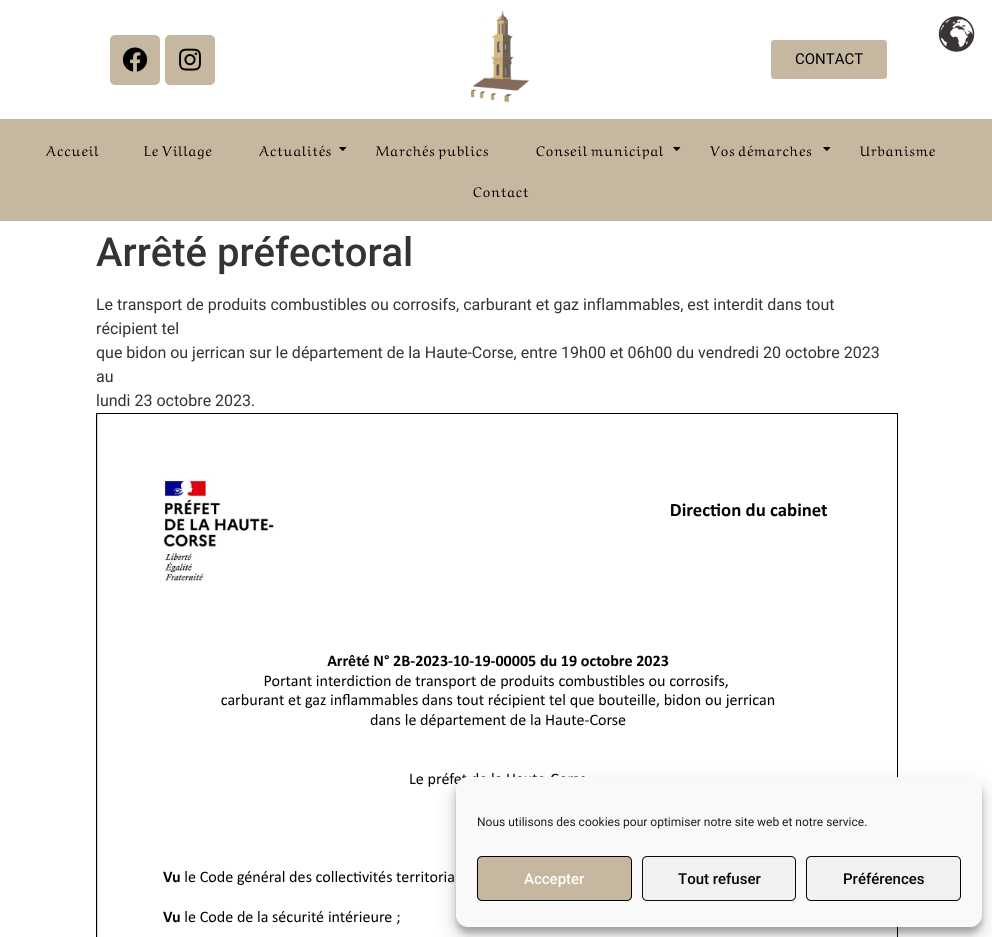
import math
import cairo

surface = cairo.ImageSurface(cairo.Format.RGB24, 992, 937)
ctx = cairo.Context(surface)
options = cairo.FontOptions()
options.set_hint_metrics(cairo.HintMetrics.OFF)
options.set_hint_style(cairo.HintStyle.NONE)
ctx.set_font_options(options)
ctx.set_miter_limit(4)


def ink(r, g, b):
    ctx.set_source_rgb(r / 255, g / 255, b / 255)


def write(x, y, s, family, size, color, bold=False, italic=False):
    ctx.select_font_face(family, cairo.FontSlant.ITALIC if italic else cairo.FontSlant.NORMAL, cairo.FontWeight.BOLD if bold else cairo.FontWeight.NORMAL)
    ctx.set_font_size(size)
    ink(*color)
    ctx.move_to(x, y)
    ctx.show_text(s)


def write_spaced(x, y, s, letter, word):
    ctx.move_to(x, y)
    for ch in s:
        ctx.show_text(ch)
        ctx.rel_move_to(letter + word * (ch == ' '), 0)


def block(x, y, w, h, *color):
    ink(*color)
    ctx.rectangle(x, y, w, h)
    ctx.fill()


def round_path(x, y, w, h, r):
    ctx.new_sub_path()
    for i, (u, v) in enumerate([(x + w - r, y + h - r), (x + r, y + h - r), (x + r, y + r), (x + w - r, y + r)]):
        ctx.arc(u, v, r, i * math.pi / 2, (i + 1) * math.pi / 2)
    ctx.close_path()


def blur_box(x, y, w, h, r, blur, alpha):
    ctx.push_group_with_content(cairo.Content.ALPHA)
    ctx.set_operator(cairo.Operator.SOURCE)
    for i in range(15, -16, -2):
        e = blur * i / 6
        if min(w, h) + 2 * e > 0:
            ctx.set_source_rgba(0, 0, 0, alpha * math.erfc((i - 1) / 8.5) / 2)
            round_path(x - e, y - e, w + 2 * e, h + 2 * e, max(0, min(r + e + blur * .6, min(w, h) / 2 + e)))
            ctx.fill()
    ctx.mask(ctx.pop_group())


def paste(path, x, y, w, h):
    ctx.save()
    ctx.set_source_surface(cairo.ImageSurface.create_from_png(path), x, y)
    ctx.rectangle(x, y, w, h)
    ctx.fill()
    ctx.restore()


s1 = dict(family="Roboto", size=15, color=(0, 0, 0))
s2 = dict(family="Roboto Medium", size=40, color=(51, 51, 51))
s3 = dict(family="Roboto", size=16, color=(51, 51, 51))
s4 = dict(family="Roboto", size=12, color=(25, 30, 35))
s5 = dict(family="Roboto Medium", size=15, color=(255, 255, 255))
s6 = dict(family="Roboto Medium", size=15, color=(10, 1, 1))

ink(255, 255, 255)
ctx.paint()
paste("pic1.png", 938, 16, 37, 36)
ink(198, 184, 160)
round_path(110, 35, 50, 50, 5)
ctx.fill()
paste("pic2.png", 122, 47, 26, 25)
round_path(165, 35, 50, 50, 5)
ctx.fill()
paste("pic3.png", 179, 48, 22, 23)
paste("pic4.png", 470, 10, 60, 92)
round_path(771, 40, 116, 39, 3)
ctx.fill()
write(795, 64, "CONTACT", **s1)
block(0, 119, 992, 102, 198, 184, 160)
ctx.select_font_face("Aref Ruqaa")
ctx.set_font_size(14)
ink(0, 0, 0)
write_spaced(46, 156, "Accueil", 0.9, 0)
write_spaced(144, 156, "Le Village", 0.9, 0)
write_spaced(259, 156, "Actualités", 0.9, 0)
paste("pic5.png", 339, 147, 8, 4)
write_spaced(376, 156, "Marchés publics", 0.9, 0)
write_spaced(536, 156, "Conseil municipal", 0.9, 0)
paste("pic5.png", 673, 147, 8, 4)
write_spaced(710, 156, "Vos démarches", 0.9, 0)
paste("pic5.png", 823, 147, 8, 4)
write_spaced(860, 156, "Urbanisme", 0.9, 0)
write_spaced(473, 197, "Contact", 0.9, 0)
write(96, 266, "Arrêté préfectoral", **s2)
write(96, 310, "Le transport de produits combustibles ou corrosifs, carburant et gaz inflammables, est interdit dans tout", **s3)
write(96, 334, "récipient tel", **s3)
write(96, 358, "que bidon ou jerrican sur le département de la Haute-Corse, entre 19h00 et 06h00 du vendredi 20 octobre 2023", **s3)
write(96, 382, "au", **s3)
write(96, 406, "lundi 23 octobre 2023.", **s3)
block(97, 414, 1, 523, 211, 211, 211)
ctx.rectangle(96.5, 413.5, 801, 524)
ink(0, 0, 0)
ctx.set_line_width(1)
ctx.stroke()
paste("pic6.png", 163, 479, 664, 446)
ink(0, 0, 0)
blur_box(456, 783, 526, 150, 12, 3, 0.23)
blur_box(456, 787, 526, 150, 12, 10, 0.19)
ink(249, 249, 249)
round_path(456.5, 777.5, 525, 149, 11.5)
ctx.fill_preserve()
ctx.stroke()
write(477, 826, "Nous utilisons des cookies pour optimiser notre site web et notre service.", **s4)
ink(198, 184, 160)
round_path(477.5, 856.5, 154, 44, 4.5)
ctx.fill_preserve()
ink(0, 0, 0)
ctx.stroke()
write(524, 884, "Accepter", **s5)
ink(241, 241, 241)
round_path(642.5, 856.5, 153, 44, 4.5)
ctx.fill_preserve()
ink(10, 10, 10)
ctx.stroke()
write(678, 884, "Tout refuser", **s6)
ink(241, 241, 241)
round_path(806.5, 856.5, 154, 44, 4.5)
ctx.fill_preserve()
ink(10, 1, 1)
ctx.stroke()
write(843, 884, "Préférences", **s6)
surface.write_to_png("screenshot.png")
